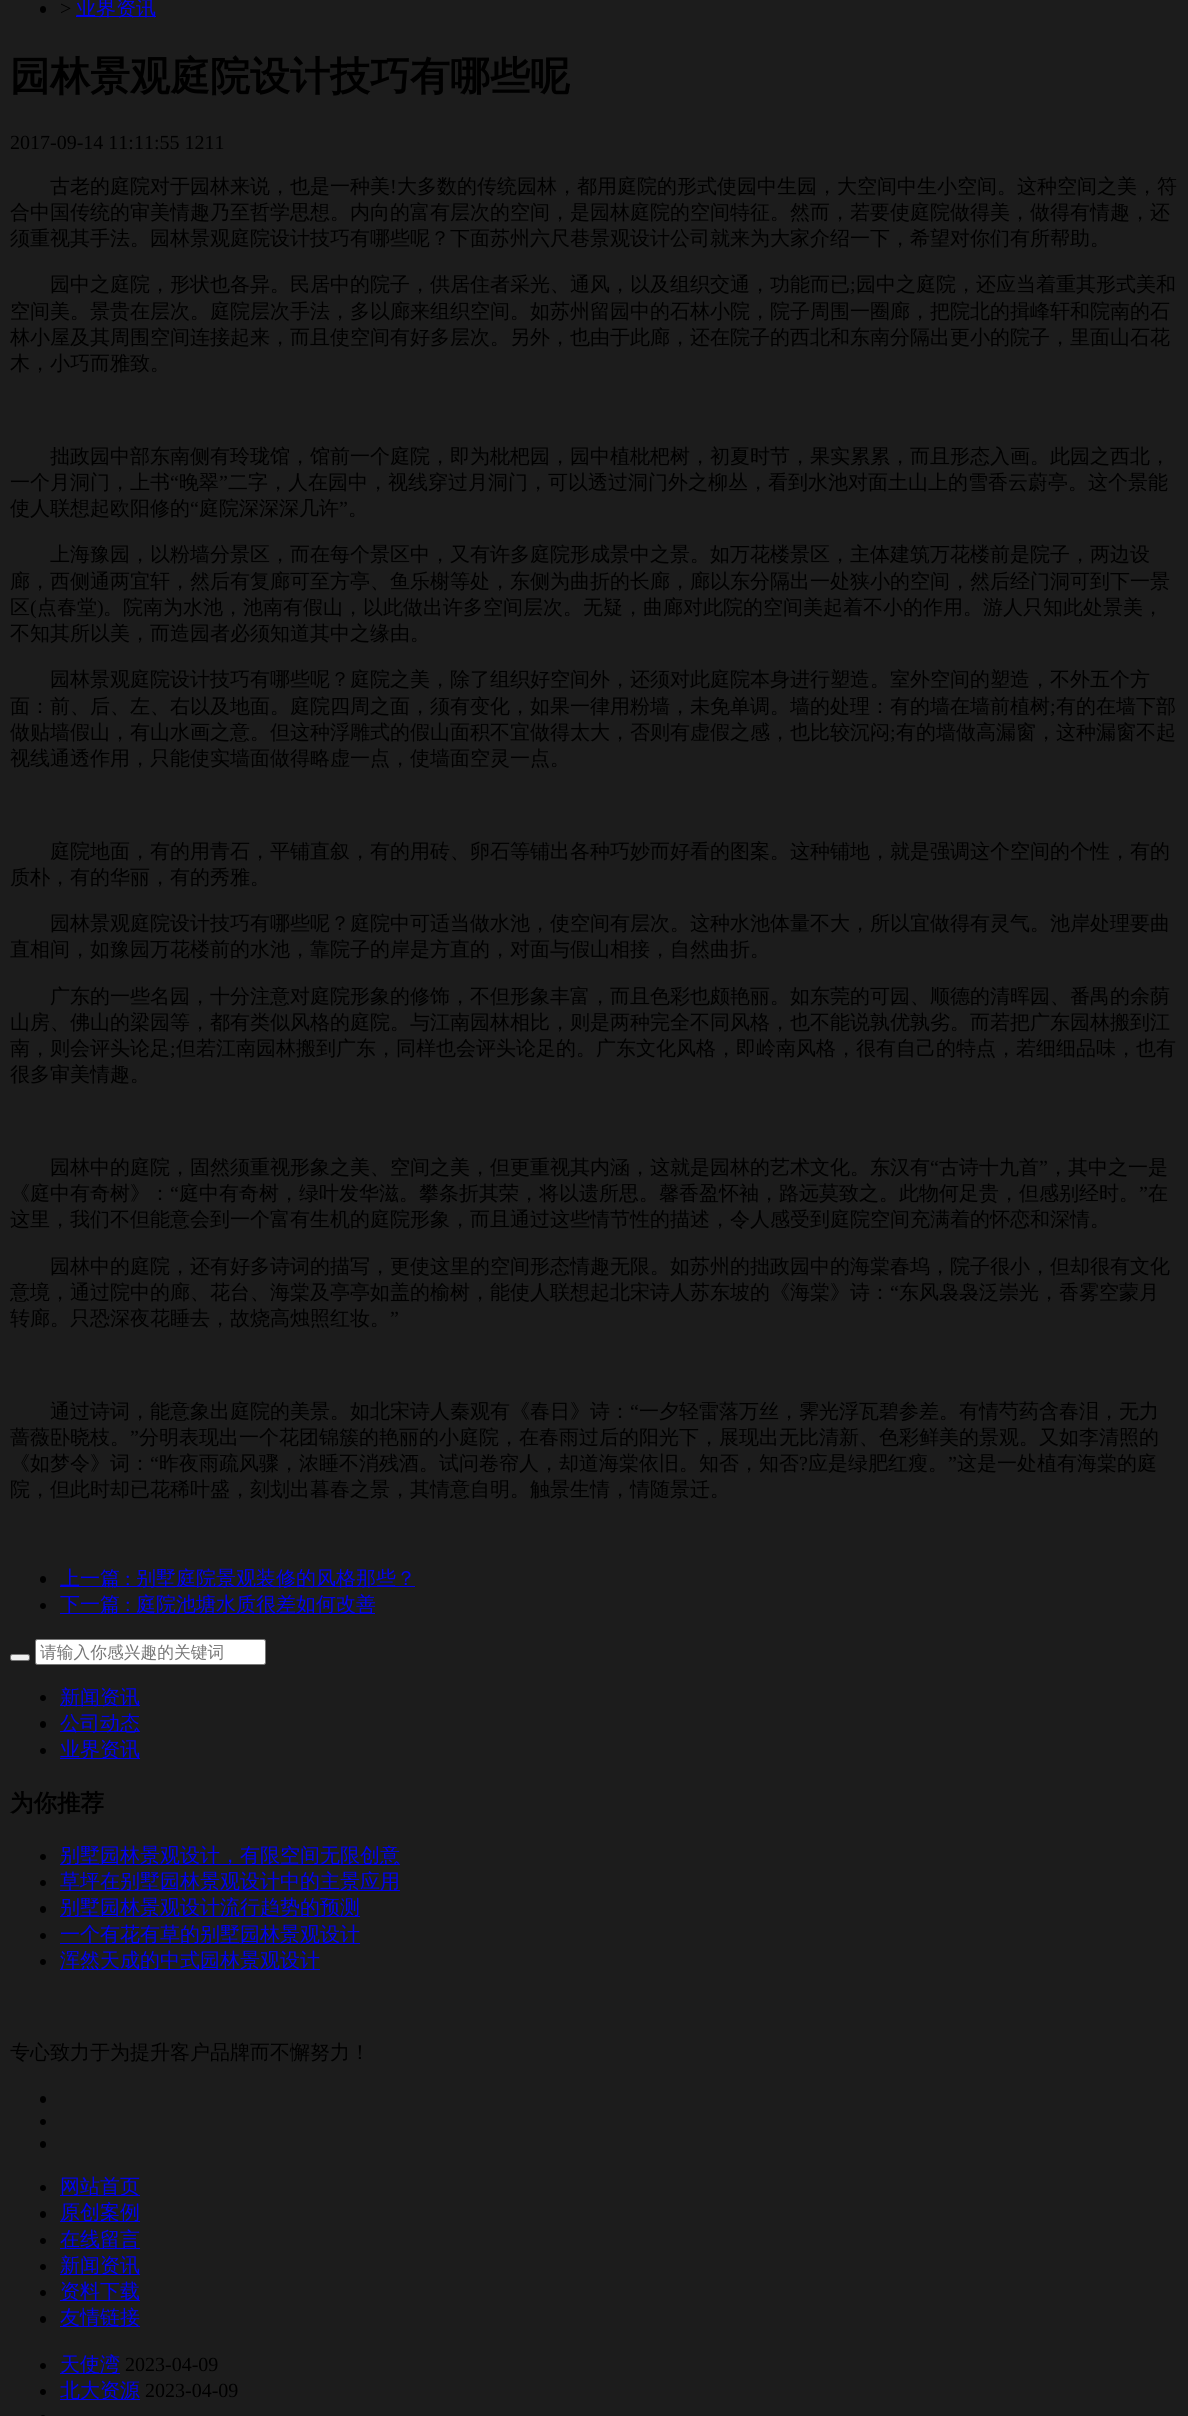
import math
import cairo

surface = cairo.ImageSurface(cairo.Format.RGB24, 1188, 2416)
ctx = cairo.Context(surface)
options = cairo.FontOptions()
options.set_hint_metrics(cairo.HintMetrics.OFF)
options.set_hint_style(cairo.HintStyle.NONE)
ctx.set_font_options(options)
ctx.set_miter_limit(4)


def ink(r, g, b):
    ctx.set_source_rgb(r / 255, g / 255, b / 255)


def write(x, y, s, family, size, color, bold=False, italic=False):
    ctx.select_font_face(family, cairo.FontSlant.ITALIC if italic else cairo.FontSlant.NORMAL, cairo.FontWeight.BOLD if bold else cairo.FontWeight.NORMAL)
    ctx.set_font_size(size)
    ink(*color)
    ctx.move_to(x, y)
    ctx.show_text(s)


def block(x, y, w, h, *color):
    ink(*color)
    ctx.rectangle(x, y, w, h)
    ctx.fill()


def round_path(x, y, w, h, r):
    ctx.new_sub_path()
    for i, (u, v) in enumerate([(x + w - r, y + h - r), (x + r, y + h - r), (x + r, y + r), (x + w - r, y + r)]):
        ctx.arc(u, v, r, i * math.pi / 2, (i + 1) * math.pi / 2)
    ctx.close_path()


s1 = dict(family="Liberation Serif", size=20, color=(0, 0, 0))
s2 = dict(family="WenQuanYi Zen Hei Medium", size=20, color=(0, 0, 238))
s3 = dict(family="WenQuanYi Zen Hei", size=40, color=(0, 0, 0), bold=True)
s4 = dict(family="WenQuanYi Zen Hei Medium", size=20, color=(0, 0, 0))
s5 = dict(family="Liberation Serif", size=20, color=(0, 0, 238))
s6 = dict(family="WenQuanYi Zen Hei Medium", size=16.75, color=(117, 117, 117))
s7 = dict(family="WenQuanYi Zen Hei", size=23.5, color=(0, 0, 0), bold=True)

ink(28, 28, 28)
ctx.paint()
ink(0, 0, 0)
round_path(40, 6, 6, 7, 3)
ctx.fill()
write(60, 15, ">", **s1)
block(76, 16, 80, 1, 0, 0, 238)
write(76, 15, "业界资讯", **s2)
write(10, 90, "园林景观庭院设计技巧有哪些呢", **s3)
write(10, 149, "2017-09-14 11:11:55 1211", **s1)
write(50, 193, "古老的庭院对于园林来说，也是一种美", **s4)
write(390, 193, "!", **s1)
write(397, 193, "大多数的传统园林，都用庭院的形式使园中生园，大空间中生小空间。这种空间之美，符", **s4)
write(10, 219, "合中国传统的审美情趣乃至哲学思想。内向的富有层次的空间，是园林庭院的空间特征。然而，若要使庭院做得美，做得有情趣，还", **s4)
write(10, 245, "须重视其手法。园林景观庭院设计技巧有哪些呢？下面苏州六尺巷景观设计公司就来为大家介绍一下，希望对你们有所帮助。", **s4)
write(50, 291, "园中之庭院，形状也各异。民居中的院子，供居住者采光、通风，以及组织交通，功能而已", **s4)
write(850, 291, ";", **s1)
write(856, 291, "园中之庭院，还应当着重其形式美和", **s4)
write(10, 318, "空间美。景贵在层次。庭院层次手法，多以廊来组织空间。如苏州留园中的石林小院，院子周围一圈廊，把院北的揖峰轩和院南的石", **s4)
write(10, 344, "林小屋及其周围空间连接起来，而且使空间有好多层次。另外，也由于此廊，还在院子的西北和东南分隔出更小的院子，里面山石花", **s4)
write(10, 370, "木，小巧而雅致。", **s4)
write(50, 463, "拙政园中部东南侧有玲珑馆，馆前一个庭院，即为枇杷园，园中植枇杷树，初夏时节，果实累累，而且形态入画。此园之西北，", **s4)
write(10, 489, "一个月洞门，上书", **s4)
write(170, 489, "“", **s1)
write(179, 489, "晚翠", **s4)
write(219, 489, "”", **s1)
write(228, 489, "二字，人在园中，视线穿过月洞门，可以透过洞门外之柳丛，看到水池对面土山上的雪香云蔚亭。这个景能", **s4)
write(10, 515, "使人联想起欧阳修的", **s4)
write(190, 515, "“", **s1)
write(199, 515, "庭院深深深几许", **s4)
write(339, 515, "”", **s1)
write(348, 515, "。", **s4)
write(50, 561, "上海豫园，以粉墙分景区，而在每个景区中，又有许多庭院形成景中之景。如万花楼景区，主体建筑万花楼前是院子，两边设", **s4)
write(10, 588, "廊，西侧通两宜轩，然后有复廊可至方亭、鱼乐榭等处，东侧为曲折的长廊，廊以东分隔出一处狭小的空间，然后经门洞可到下一景", **s4)
write(10, 614, "区", **s4)
write(30, 614, "(", **s1)
write(37, 614, "点春堂", **s4)
write(97, 614, ")", **s1)
write(103, 614, "。院南为水池，池南有假山，以此做出许多空间层次。无疑，曲廊对此院的空间美起着不小的作用。游人只知此处景美，", **s4)
write(10, 640, "不知其所以美，而造园者必须知道其中之缘由。", **s4)
write(50, 686, "园林景观庭院设计技巧有哪些呢？庭院之美，除了组织好空间外，还须对此庭院本身进行塑造。室外空间的塑造，不外五个方", **s4)
write(10, 713, "面：前、后、左、右以及地面。庭院四周之面，须有变化，如果一律用粉墙，未免单调。墙的处理：有的墙在墙前植树", **s4)
write(1050, 713, ";", **s1)
write(1056, 713, "有的在墙下部", **s4)
write(10, 739, "做贴墙假山，有山水画之意。但这种浮雕式的假山面积不宜做得太大，否则有虚假之感，也比较沉闷", **s4)
write(890, 739, ";", **s1)
write(896, 739, "有的墙做高漏窗，这种漏窗不起", **s4)
write(10, 765, "视线通透作用，只能使实墙面做得略虚一点，使墙面空灵一点。", **s4)
write(50, 858, "庭院地面，有的用青石，平铺直叙，有的用砖、卵石等铺出各种巧妙而好看的图案。这种铺地，就是强调这个空间的个性，有的", **s4)
write(10, 884, "质朴，有的华丽，有的秀雅。", **s4)
write(50, 930, "园林景观庭院设计技巧有哪些呢？庭院中可适当做水池，使空间有层次。这种水池体量不大，所以宜做得有灵气。池岸处理要曲", **s4)
write(10, 956, "直相间，如豫园万花楼前的水池，靠院子的岸是方直的，对面与假山相接，自然曲折。", **s4)
write(50, 1003, "广东的一些名园，十分注意对庭院形象的修饰，不但形象丰富，而且色彩也颇艳丽。如东莞的可园、顺德的清晖园、番禺的余荫", **s4)
write(10, 1029, "山房、佛山的梁园等，都有类似风格的庭院。与江南园林相比，则是两种完全不同风格，也不能说孰优孰劣。而若把广东园林搬到江", **s4)
write(10, 1055, "南，则会评头论足", **s4)
write(170, 1055, ";", **s1)
write(176, 1055, "但若江南园林搬到广东，同样也会评头论足的。广东文化风格，即岭南风格，很有自己的特点，若细细品味，也有", **s4)
write(10, 1081, "很多审美情趣。", **s4)
write(50, 1174, "园林中的庭院，固然须重视形象之美、空间之美，但更重视其内涵，这就是园林的艺术文化。东汉有", **s4)
write(930, 1174, "“", **s1)
write(939, 1174, "古诗十九首", **s4)
write(1039, 1174, "”", **s1)
write(1048, 1174, "，其中之一是", **s4)
write(10, 1200, "《庭中有奇树》：", **s4)
write(170, 1200, "“", **s1)
write(179, 1200, "庭中有奇树，绿叶发华滋。攀条折其荣，将以遗所思。馨香盈怀袖，路远莫致之。此物何足贵，但感别经时。", **s4)
write(1139, 1200, "”", **s1)
write(1148, 1200, "在", **s4)
write(10, 1226, "这里，我们不但能意会到一个富有生机的庭院形象，而且通过这些情节性的描述，令人感受到庭院空间充满着的怀恋和深情。", **s4)
write(50, 1273, "园林中的庭院，还有好多诗词的描写，更使这里的空间形态情趣无限。如苏州的拙政园中的海棠春坞，院子很小，但却很有文化", **s4)
write(10, 1299, "意境，通过院中的廊、花台、海棠及亭亭如盖的榆树，能使人联想起北宋诗人苏东坡的《海棠》诗：", **s4)
write(890, 1299, "“", **s1)
write(899, 1299, "东风袅袅泛崇光，香雾空蒙月", **s4)
write(10, 1325, "转廊。只恐深夜花睡去，故烧高烛照红妆。", **s4)
write(390, 1325, "”", **s1)
write(50, 1418, "通过诗词，能意象出庭院的美景。如北宋诗人秦观有《春日》诗：", **s4)
write(630, 1418, "“", **s1)
write(639, 1418, "一夕轻雷落万丝，霁光浮瓦碧参差。有情芍药含春泪，无力", **s4)
write(10, 1444, "蔷薇卧晓枝。", **s4)
write(130, 1444, "”", **s1)
write(139, 1444, "分明表现出一个花团锦簇的艳丽的小庭院，在春雨过后的阳光下，展现出无比清新、色彩鲜美的景观。又如李清照的", **s4)
write(10, 1470, "《如梦令》词：", **s4)
write(150, 1470, "“", **s1)
write(159, 1470, "昨夜雨疏风骤，浓睡不消残酒。试问卷帘人，却道海棠依旧。知否，知否", **s4)
write(799, 1470, "?", **s1)
write(808, 1470, "应是绿肥红瘦。", **s4)
write(948, 1470, "”", **s1)
write(957, 1470, "这是一处植有海棠的庭", **s4)
write(10, 1496, "院，但此时却已花稀叶盛，刻划出暮春之景，其情意自明。触景生情，情随景迁。", **s4)
round_path(40, 1576, 6, 7, 3)
ctx.fill()
block(60, 1586, 355, 1, 0, 0, 238)
write(60, 1585, "上一篇", **s2)
write(125, 1585, ":", **s5)
write(136, 1585, "别墅庭院景观装修的风格那些？", **s2)
ink(0, 0, 0)
ctx.new_path()
ctx.arc(43, 1606, 3, 0, 2 * math.pi)
ctx.fill()
block(60, 1613, 315, 1, 0, 0, 238)
write(60, 1611, "下一篇", **s2)
write(125, 1611, ":", **s5)
write(136, 1611, "庭院池塘水质很差如何改善", **s2)
ink(239, 239, 239)
round_path(10.5, 1654.5, 19, 6, 2)
ctx.fill_preserve()
ink(118, 118, 118)
ctx.set_line_width(1)
ctx.stroke()
ink(255, 255, 255)
round_path(35.5, 1639.5, 230, 25, 2)
ctx.fill_preserve()
ink(118, 118, 118)
ctx.stroke()
write(40, 1658, "请输入你感兴趣的关键词", **s6)
ink(0, 0, 0)
ctx.new_path()
ctx.arc(43, 1698, 3, 0, 2 * math.pi)
ctx.fill()
block(60, 1705, 80, 1, 0, 0, 238)
write(60, 1704, "新闻资讯", **s2)
ink(0, 0, 0)
round_path(40, 1721, 6, 7, 3)
ctx.fill()
block(60, 1731, 80, 1, 0, 0, 238)
write(60, 1730, "公司动态", **s2)
ink(0, 0, 0)
ctx.new_path()
ctx.arc(43, 1751, 3, 0, 2 * math.pi)
ctx.fill()
block(60, 1758, 80, 1, 0, 0, 238)
write(60, 1756, "业界资讯", **s2)
write(10, 1811, "为你推荐", **s7)
ctx.new_path()
ctx.arc(43, 1857, 3, 0, 2 * math.pi)
ctx.fill()
block(60, 1864, 340, 1, 0, 0, 238)
write(60, 1862, "别墅园林景观设计，有限空间无限创意", **s2)
ink(0, 0, 0)
ctx.new_path()
ctx.arc(43, 1883, 3, 0, 2 * math.pi)
ctx.fill()
block(60, 1890, 340, 1, 0, 0, 238)
write(60, 1888, "草坪在别墅园林景观设计中的主景应用", **s2)
ink(0, 0, 0)
round_path(40, 1906, 6, 7, 3)
ctx.fill()
block(60, 1916, 300, 1, 0, 0, 238)
write(60, 1914, "别墅园林景观设计流行趋势的预测", **s2)
ink(0, 0, 0)
ctx.new_path()
ctx.arc(43, 1936, 3, 0, 2 * math.pi)
ctx.fill()
block(60, 1943, 300, 1, 0, 0, 238)
write(60, 1941, "一个有花有草的别墅园林景观设计", **s2)
ink(0, 0, 0)
ctx.new_path()
ctx.arc(43, 1962, 3, 0, 2 * math.pi)
ctx.fill()
block(60, 1969, 260, 1, 0, 0, 238)
write(60, 1967, "浑然天成的中式园林景观设计", **s2)
write(10, 2059, "专心致力于为提升客户品牌而不懈努力！", **s4)
round_path(40, 2096, 6, 7, 3)
ctx.fill()
ctx.arc(43, 2122, 3, 0, 2 * math.pi)
ctx.fill()
round_path(40, 2141, 6, 7, 3)
ctx.fill()
ctx.arc(43, 2188, 3, 0, 2 * math.pi)
ctx.fill()
block(60, 2195, 80, 1, 0, 0, 238)
write(60, 2193, "网站首页", **s2)
ink(0, 0, 0)
round_path(40, 2211, 6, 7, 3)
ctx.fill()
block(60, 2221, 80, 1, 0, 0, 238)
write(60, 2219, "原创案例", **s2)
ink(0, 0, 0)
ctx.new_path()
ctx.arc(43, 2241, 3, 0, 2 * math.pi)
ctx.fill()
block(60, 2248, 80, 1, 0, 0, 238)
write(60, 2246, "在线留言", **s2)
ink(0, 0, 0)
ctx.new_path()
ctx.arc(43, 2267, 3, 0, 2 * math.pi)
ctx.fill()
block(60, 2274, 80, 1, 0, 0, 238)
write(60, 2272, "新闻资讯", **s2)
ink(0, 0, 0)
ctx.new_path()
ctx.arc(43, 2293, 3, 0, 2 * math.pi)
ctx.fill()
block(60, 2300, 80, 1, 0, 0, 238)
write(60, 2298, "资料下载", **s2)
ink(0, 0, 0)
round_path(40, 2316, 6, 7, 3)
ctx.fill()
block(60, 2326, 80, 1, 0, 0, 238)
write(60, 2324, "友情链接", **s2)
ink(0, 0, 0)
ctx.new_path()
ctx.arc(43, 2366, 3, 0, 2 * math.pi)
ctx.fill()
block(60, 2373, 60, 1, 0, 0, 238)
write(60, 2371, "天使湾", **s2)
write(125, 2371, "2023-04-09", **s1)
ctx.new_path()
ctx.arc(43, 2392, 3, 0, 2 * math.pi)
ctx.fill()
block(60, 2399, 80, 1, 0, 0, 238)
write(60, 2397, "北大资源", **s2)
write(145, 2397, "2023-04-09", **s1)
round_path(40, 2415, 6, 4, 3)
ctx.fill()
surface.write_to_png("screenshot.png")
